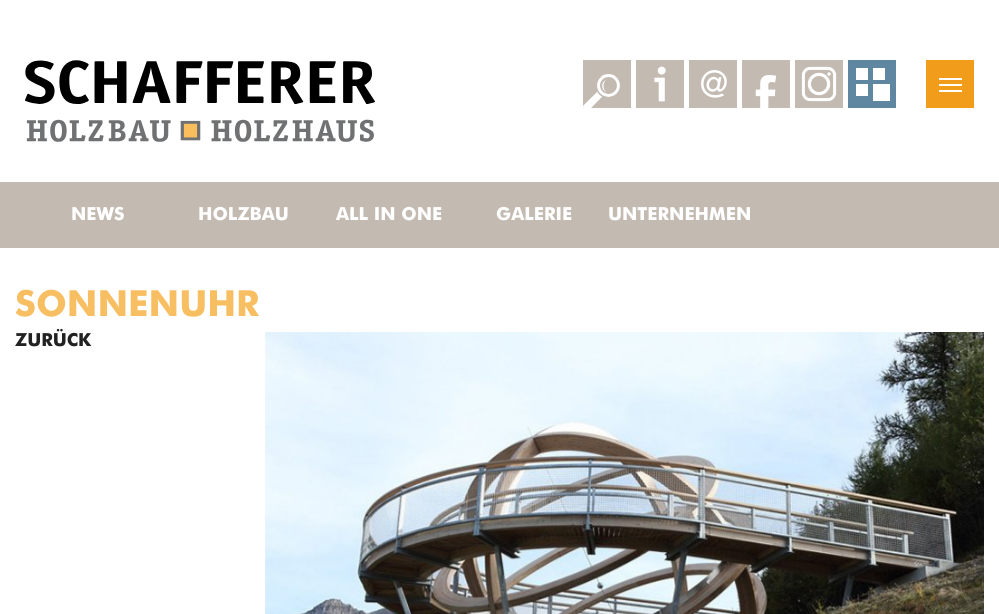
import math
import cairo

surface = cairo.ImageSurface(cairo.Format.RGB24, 999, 614)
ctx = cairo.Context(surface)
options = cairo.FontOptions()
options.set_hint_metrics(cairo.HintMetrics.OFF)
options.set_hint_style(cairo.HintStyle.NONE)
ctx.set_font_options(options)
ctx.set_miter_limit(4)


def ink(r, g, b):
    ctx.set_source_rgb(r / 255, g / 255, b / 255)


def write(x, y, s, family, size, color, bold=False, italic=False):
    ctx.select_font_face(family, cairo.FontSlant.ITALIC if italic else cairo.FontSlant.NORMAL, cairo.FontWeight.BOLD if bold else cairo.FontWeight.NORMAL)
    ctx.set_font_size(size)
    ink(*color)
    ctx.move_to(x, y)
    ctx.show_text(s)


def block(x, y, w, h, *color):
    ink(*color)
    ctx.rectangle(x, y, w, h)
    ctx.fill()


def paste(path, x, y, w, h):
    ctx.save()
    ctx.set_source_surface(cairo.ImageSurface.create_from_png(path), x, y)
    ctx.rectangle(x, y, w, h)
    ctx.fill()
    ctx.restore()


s1 = dict(family="futura", size=18, color=(255, 255, 255))
s2 = dict(family="futura", size=36, color=(248, 190, 98))
s3 = dict(family="futura", size=18, color=(34, 34, 34))

ink(255, 255, 255)
ctx.paint()
block(0, 182, 999, 66, 195, 187, 178)
paste("pic1.png", 25, 60, 350, 82)
block(583, 60, 48, 48, 195, 187, 178)
paste("pic2.png", 583, 74, 37, 34)
block(636, 60, 48, 48, 195, 187, 178)
paste("pic3.png", 654, 66, 12, 36)
block(689, 60, 48, 48, 195, 187, 178)
paste("pic4.png", 701, 70, 26, 28)
block(742, 60, 48, 48, 195, 187, 178)
paste("pic5.png", 755, 75, 22, 33)
block(795, 60, 48, 48, 195, 187, 178)
paste("pic6.png", 801, 66, 36, 36)
block(848, 60, 48, 48, 95, 135, 162)
block(856, 68, 12, 12, 255, 255, 255)
block(856, 84, 12, 12, 255, 255, 255)
block(873, 84, 17, 17, 255, 255, 255)
block(873, 68, 12, 12, 255, 255, 255)
block(926, 60, 48, 48, 242, 156, 28)
block(939, 78, 23, 2, 255, 255, 255)
block(939, 84, 23, 2, 255, 255, 255)
block(939, 90, 23, 2, 255, 255, 255)
write(71, 220, "NEWS", **s1)
write(198, 220, "HOLZBAU", **s1)
write(336, 220, "ALL IN ONE", **s1)
write(496, 220, "GALERIE", **s1)
write(608, 220, "UNTERNEHMEN", **s1)
write(15, 316, "SONNENUHR", **s2)
write(15, 346, "ZURÜCK", **s3)
paste("pic7.png", 265, 332, 719, 282)
surface.write_to_png("screenshot.png")
